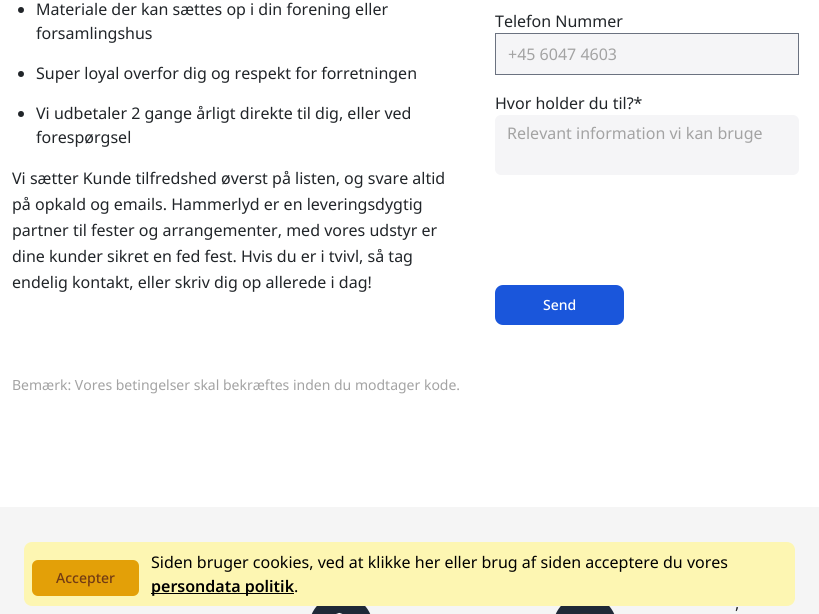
import math
import cairo

surface = cairo.ImageSurface(cairo.Format.RGB24, 819, 614)
ctx = cairo.Context(surface)
options = cairo.FontOptions()
options.set_hint_metrics(cairo.HintMetrics.OFF)
options.set_hint_style(cairo.HintStyle.NONE)
ctx.set_font_options(options)
ctx.set_miter_limit(4)


def ink(r, g, b):
    ctx.set_source_rgb(r / 255, g / 255, b / 255)


def write(x, y, s, family, size, color, bold=False, italic=False):
    ctx.select_font_face(family, cairo.FontSlant.ITALIC if italic else cairo.FontSlant.NORMAL, cairo.FontWeight.BOLD if bold else cairo.FontWeight.NORMAL)
    ctx.set_font_size(size)
    ink(*color)
    ctx.move_to(x, y)
    ctx.show_text(s)


def block(x, y, w, h, *color):
    ink(*color)
    ctx.rectangle(x, y, w, h)
    ctx.fill()


def round_path(x, y, w, h, r):
    ctx.new_sub_path()
    for i, (u, v) in enumerate([(x + w - r, y + h - r), (x + r, y + h - r), (x + r, y + r), (x + w - r, y + r)]):
        ctx.arc(u, v, r, i * math.pi / 2, (i + 1) * math.pi / 2)
    ctx.close_path()


def paste(path, x, y, w, h):
    ctx.save()
    ctx.set_source_surface(cairo.ImageSurface.create_from_png(path), x, y)
    ctx.rectangle(x, y, w, h)
    ctx.fill()
    ctx.restore()


s1 = dict(family="Noto Sans", size=16, color=(33, 37, 41))
s2 = dict(family="Noto Sans", size=14, color=(163, 163, 163))
s3 = dict(family="Noto Sans", size=16, color=(163, 163, 163))
s4 = dict(family="Noto Sans Medium", size=14, color=(255, 255, 255))
s5 = dict(family="Noto Sans Medium", size=14, color=(114, 59, 19))
s6 = dict(family="Noto Sans", size=16, color=(0, 0, 0))
s7 = dict(family="Noto Sans SemiBold", size=16, color=(0, 0, 0))

ink(255, 255, 255)
ctx.paint()
ink(33, 37, 41)
ctx.arc(21, 10, 3, 0, 2 * math.pi)
ctx.fill()
write(36, 15, "Materiale der kan sættes op i din forening eller", **s1)
write(36, 39, "forsamlingshus", **s1)
ctx.new_path()
ctx.arc(21, 74, 3, 0, 2 * math.pi)
ctx.fill()
write(36, 79, "Super loyal overfor dig og respekt for forretningen", **s1)
ctx.new_path()
ctx.arc(21, 114, 3, 0, 2 * math.pi)
ctx.fill()
write(36, 119, "Vi udbetaler 2 gange årligt direkte til dig, eller ved", **s1)
write(36, 143, "forespørgsel", **s1)
write(12, 184, "Vi sætter Kunde tilfredshed øverst på listen, og svare altid", **s1)
write(12, 210, "på opkald og emails. Hammerlyd er en leveringsdygtig", **s1)
write(12, 236, "partner til fester og arrangementer, med vores udstyr er", **s1)
write(12, 262, "dine kunder sikret en fed fest. Hvis du er i tvivl, så tag", **s1)
write(12, 288, "endelig kontakt, eller skriv dig op allerede i dag!", **s1)
write(12, 390, "Bemærk: Vores betingelser skal bekræftes inden du modtager kode.", **s2)
write(495, 27, "Telefon Nummer", **s1)
ink(245, 245, 247)
ctx.rectangle(495.5, 33.5, 303, 41)
ctx.fill_preserve()
ink(107, 114, 128)
ctx.set_line_width(1)
ctx.stroke()
write(508, 60, "+45 6047 4603", **s3)
write(495, 109, "Hvor holder du til?*", **s1)
ink(245, 245, 247)
round_path(495, 115, 304, 60, 6)
ctx.fill()
write(507, 139, "Relevant information vi kan bruge", **s3)
ink(26, 86, 219)
round_path(495, 285, 129, 40, 8)
ctx.fill()
write(543, 310, "Send", **s4)
block(0, 507, 819, 107, 245, 245, 245)
ink(31, 41, 55)
round_path(309, 595, 64, 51, 32)
ctx.fill()
round_path(553, 595, 64, 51, 32)
ctx.fill()
ink(253, 246, 178)
round_path(24, 542, 771, 64, 8)
ctx.fill()
ink(227, 160, 8)
round_path(32, 560, 107, 36, 6)
ctx.fill()
write(56, 583, "Accepter", **s5)
write(151, 568, "Siden bruger cookies, ved at klikke her eller brug af siden acceptere du vores", **s6)
block(151, 593, 143, 1, 0, 0, 0)
write(151, 592, "persondata politik", **s7)
write(294, 592, ".", **s6)
paste("pic1.png", 336, 612, 7, 2)
paste("pic2.png", 580, 613, 10, 1)
write(735, 609, ",", **s1)
surface.write_to_png("screenshot.png")
